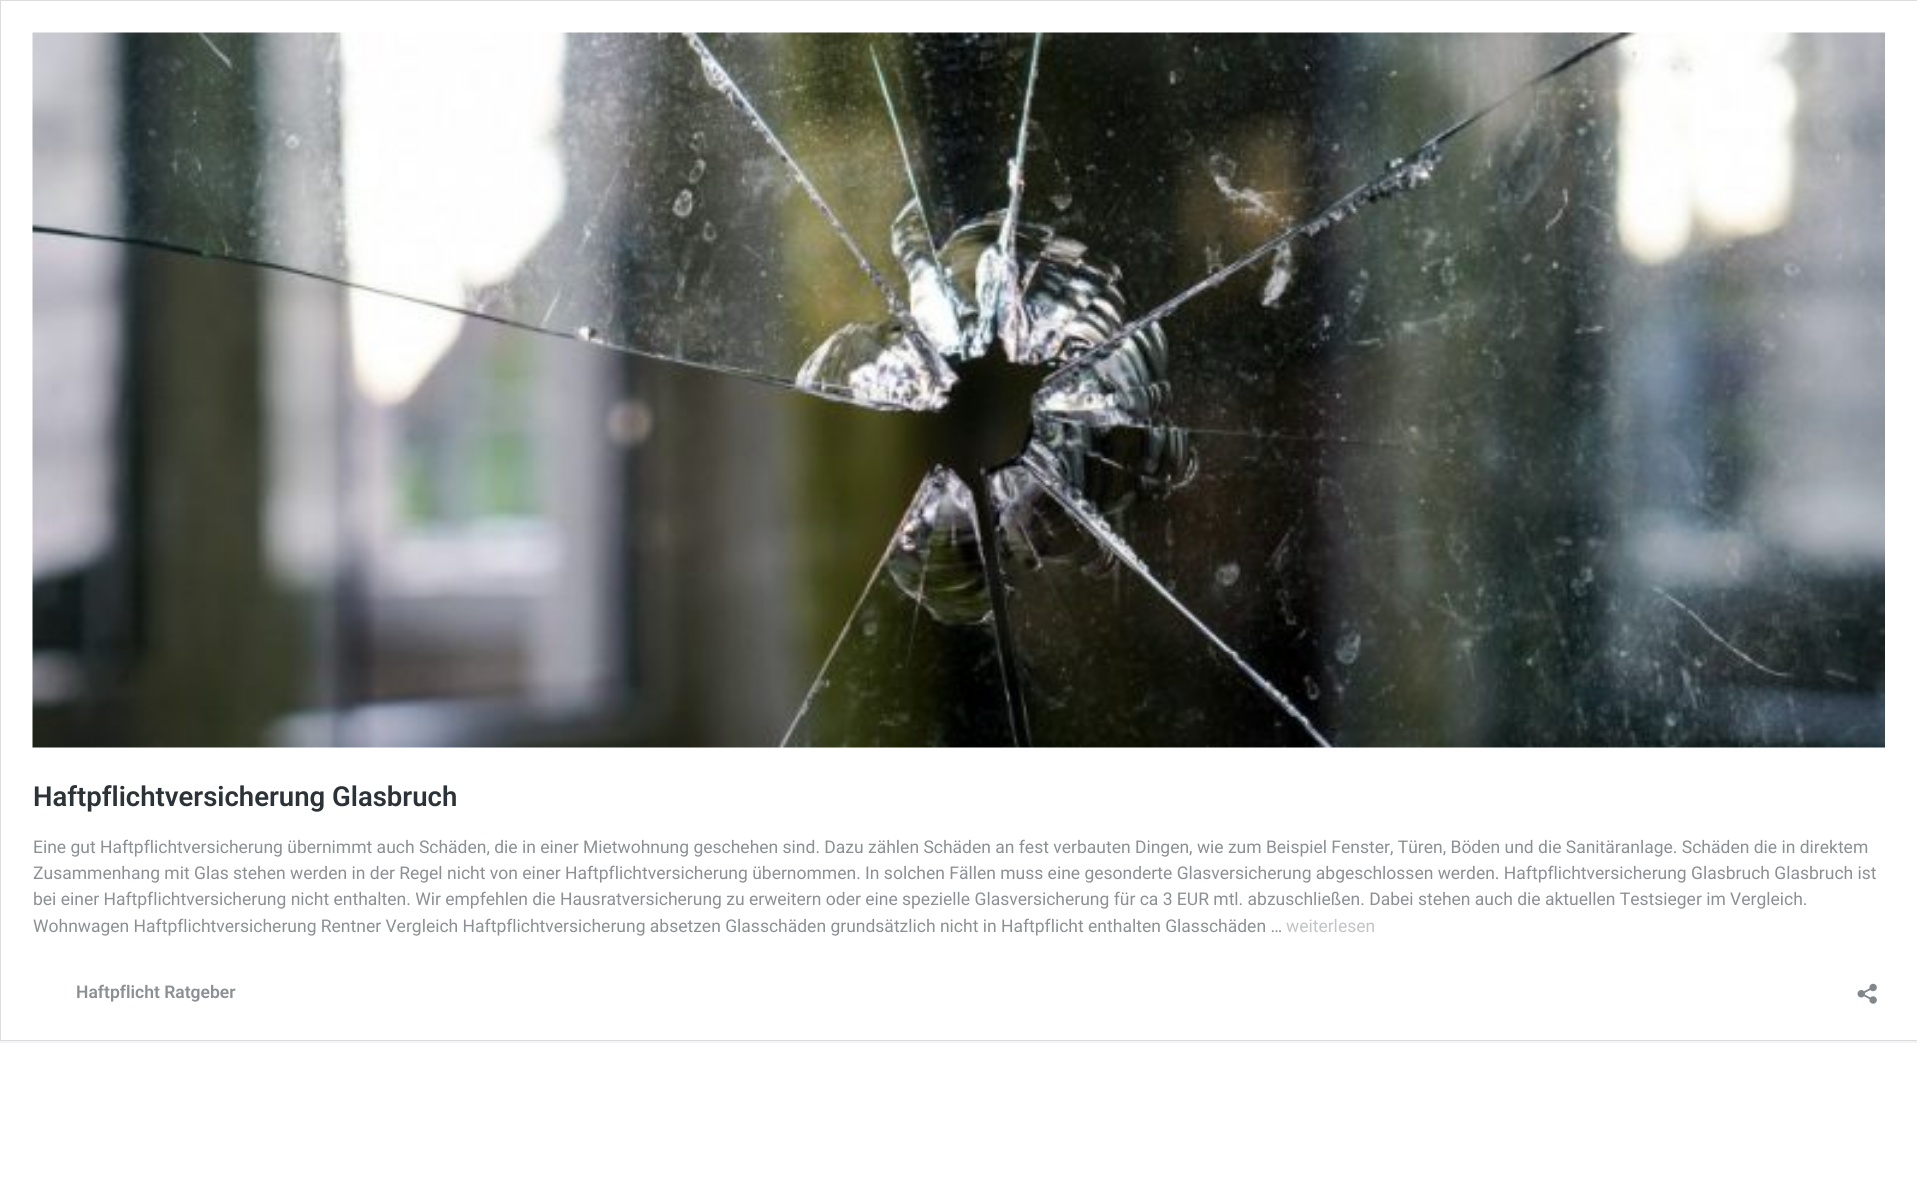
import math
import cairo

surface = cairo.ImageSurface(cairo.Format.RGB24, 1917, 1177)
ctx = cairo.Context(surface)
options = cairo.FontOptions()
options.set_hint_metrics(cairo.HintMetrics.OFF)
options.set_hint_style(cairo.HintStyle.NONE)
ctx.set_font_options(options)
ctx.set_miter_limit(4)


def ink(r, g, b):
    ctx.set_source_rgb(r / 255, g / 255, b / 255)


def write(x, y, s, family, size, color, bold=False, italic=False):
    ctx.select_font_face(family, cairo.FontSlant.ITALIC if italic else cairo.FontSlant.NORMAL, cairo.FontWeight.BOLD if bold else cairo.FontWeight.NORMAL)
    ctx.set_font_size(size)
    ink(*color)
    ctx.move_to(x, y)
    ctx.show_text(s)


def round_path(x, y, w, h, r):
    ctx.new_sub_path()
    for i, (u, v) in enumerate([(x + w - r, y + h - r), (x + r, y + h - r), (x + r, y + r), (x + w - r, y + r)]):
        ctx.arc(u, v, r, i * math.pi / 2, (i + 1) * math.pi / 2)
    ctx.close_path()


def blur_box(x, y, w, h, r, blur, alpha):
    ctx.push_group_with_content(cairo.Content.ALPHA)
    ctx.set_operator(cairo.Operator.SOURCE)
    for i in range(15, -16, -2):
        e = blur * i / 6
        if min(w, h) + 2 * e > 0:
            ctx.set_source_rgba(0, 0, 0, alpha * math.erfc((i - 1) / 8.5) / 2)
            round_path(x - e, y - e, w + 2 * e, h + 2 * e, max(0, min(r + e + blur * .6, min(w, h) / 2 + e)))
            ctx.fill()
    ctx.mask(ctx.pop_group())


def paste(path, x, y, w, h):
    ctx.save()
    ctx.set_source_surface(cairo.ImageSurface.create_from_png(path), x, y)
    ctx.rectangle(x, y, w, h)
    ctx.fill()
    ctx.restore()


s1 = dict(family="Roboto SemiBold", size=27.5, color=(44, 51, 56))
s2 = dict(family="Roboto", size=17.5, color=(140, 143, 148))
s3 = dict(family="Roboto", size=17.5, color=(195, 196, 199))
s4 = dict(family="Roboto SemiBold", size=17.5, color=(140, 143, 148))

ink(255, 255, 255)
ctx.paint()
ctx.save()
ctx.rectangle(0, 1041, 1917, 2)
ctx.clip()
ink(0, 0, 0)
blur_box(0, 1, 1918, 1042, 0, 0.5, 0.05)
ctx.restore()
ctx.rectangle(0.5, 0.5, 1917, 1040)
ink(220, 220, 222)
ctx.set_line_width(1)
ctx.stroke()
paste("pic1.png", 32, 32, 1853, 716)
write(33, 806, "Haftpflichtversicherung Glasbruch", **s1)
write(33, 853, "Eine gut Haftpflichtversicherung übernimmt auch Schäden, die in einer Mietwohnung geschehen sind. Dazu zählen Schäden an fest verbauten Dingen, wie zum Beispiel Fenster, Türen, Böden und die Sanitäranlage. Schäden die in direktem", **s2)
write(33, 879, "Zusammenhang mit Glas stehen werden in der Regel nicht von einer Haftpflichtversicherung übernommen. In solchen Fällen muss eine gesonderte Glasversicherung abgeschlossen werden. Haftpflichtversicherung Glasbruch Glasbruch ist", **s2)
write(33, 905, "bei einer Haftpflichtversicherung nicht enthalten. Wir empfehlen die Hausratversicherung zu erweitern oder eine spezielle Glasversicherung für ca 3 EUR mtl. abzuschließen. Dabei stehen auch die aktuellen Testsieger im Vergleich.", **s2)
write(33, 932, "Wohnwagen Haftpflichtversicherung Rentner Vergleich Haftpflichtversicherung absetzen Glasschäden grundsätzlich nicht in Haftpflicht enthalten Glasschäden …", **s2)
write(1286, 932, "weiterlesen", **s3)
write(76, 998, "Haftpflicht Ratgeber", **s4)
paste("pic2.png", 1857, 983, 20, 21)
surface.write_to_png("screenshot.png")
